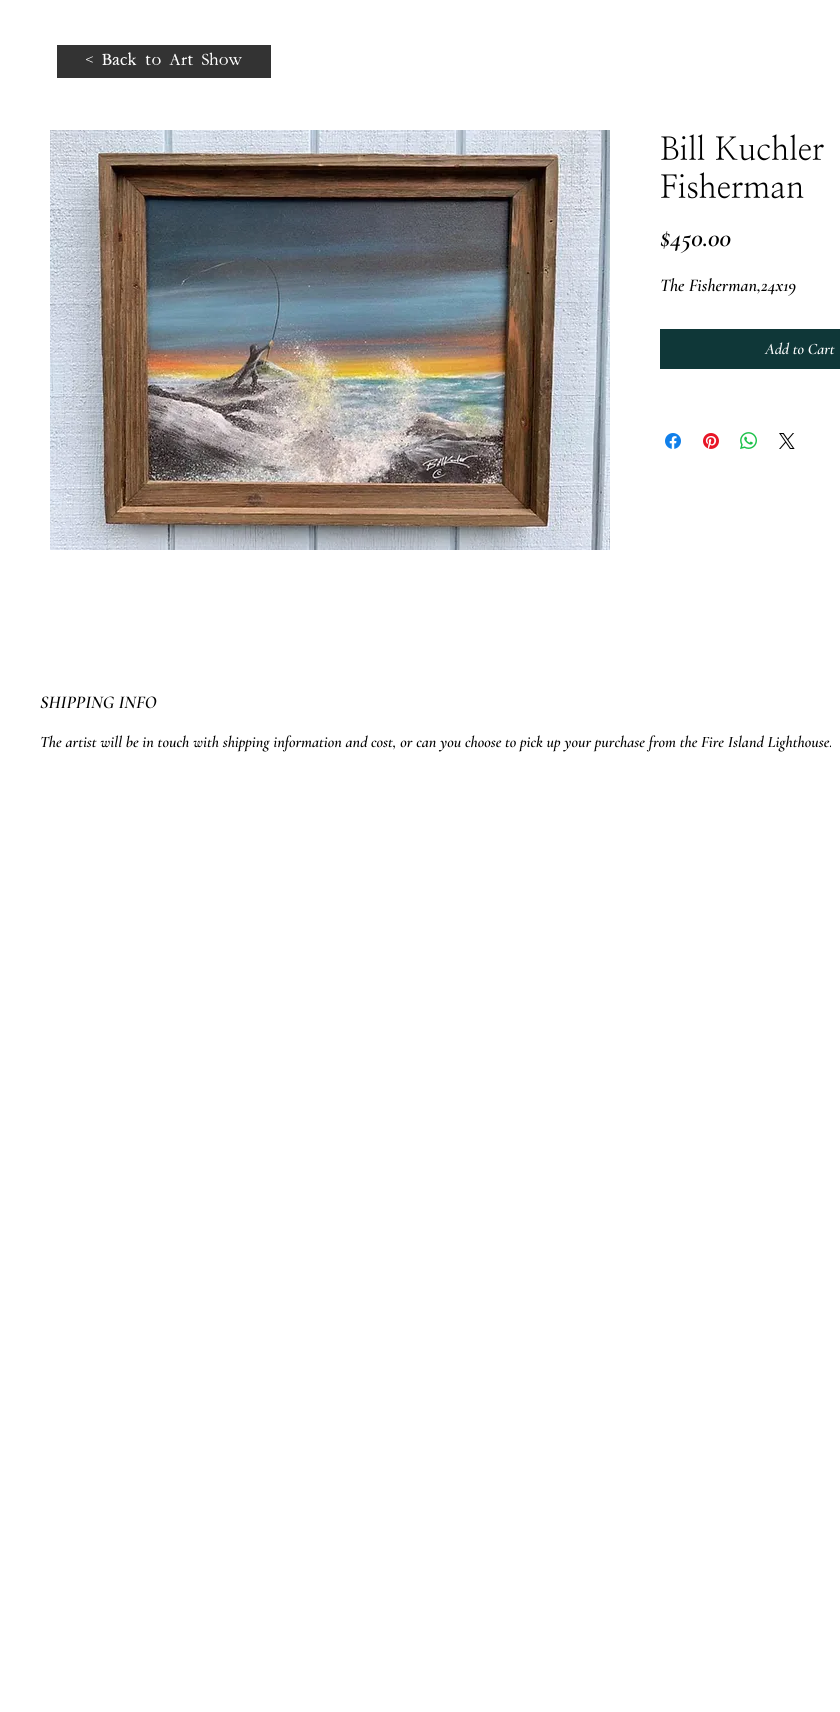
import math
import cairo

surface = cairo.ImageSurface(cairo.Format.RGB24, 840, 1712)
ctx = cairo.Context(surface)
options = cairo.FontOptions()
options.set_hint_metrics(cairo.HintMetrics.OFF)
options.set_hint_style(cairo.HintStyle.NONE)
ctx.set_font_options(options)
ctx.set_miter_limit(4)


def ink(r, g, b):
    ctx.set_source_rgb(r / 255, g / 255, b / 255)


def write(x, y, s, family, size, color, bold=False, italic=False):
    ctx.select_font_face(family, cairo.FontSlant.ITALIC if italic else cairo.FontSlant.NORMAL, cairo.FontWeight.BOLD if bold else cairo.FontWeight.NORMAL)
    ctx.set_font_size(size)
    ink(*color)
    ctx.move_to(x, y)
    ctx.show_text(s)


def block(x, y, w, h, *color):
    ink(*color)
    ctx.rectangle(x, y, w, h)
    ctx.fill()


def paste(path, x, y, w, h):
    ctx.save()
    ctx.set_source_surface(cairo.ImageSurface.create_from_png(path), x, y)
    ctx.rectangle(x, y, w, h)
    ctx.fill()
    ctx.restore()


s1 = dict(family="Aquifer", size=16, color=(255, 255, 255))
s2 = dict(family="NanumMyeongjo", size=32, color=(0, 0, 0))
s3 = dict(family="Cormorant Garamond SemiBold", size=26, color=(0, 0, 0), italic=True)
s4 = dict(family="Cormorant Garamond SemiBold", size=18, color=(0, 0, 0), italic=True)
s5 = dict(family="Cormorant Garamond SemiBold", size=16, color=(255, 255, 255), italic=True)
s6 = dict(family="Cormorant Garamond SemiBold", size=16, color=(0, 0, 0), italic=True)

ink(255, 255, 255)
ctx.paint()
block(57, 45, 214, 33, 51, 51, 51)
write(85, 65, "< Back to Art Show", **s1)
paste("pic1.png", 50, 130, 560, 420)
write(660, 160, "Bill Kuchler", **s2)
write(660, 198, "Fisherman", **s2)
write(660, 246, "$450.00", **s3)
write(660, 291, "The Fisherman,24x19", **s4)
block(660, 329, 180, 40, 15, 55, 56)
write(765, 354, "Add to Cart", **s5)
paste("pic2.png", 665, 433, 16, 16)
paste("pic3.png", 703, 433, 16, 16)
paste("pic4.png", 740, 432, 17, 17)
paste("pic5.png", 779, 433, 16, 16)
write(40, 708, "SHIPPING INFO", **s4)
write(40, 747, "The artist will be in touch with shipping information and cost, or can you choose to pick up your purchase from the Fire Island Lighthouse.", **s6)
surface.write_to_png("screenshot.png")
